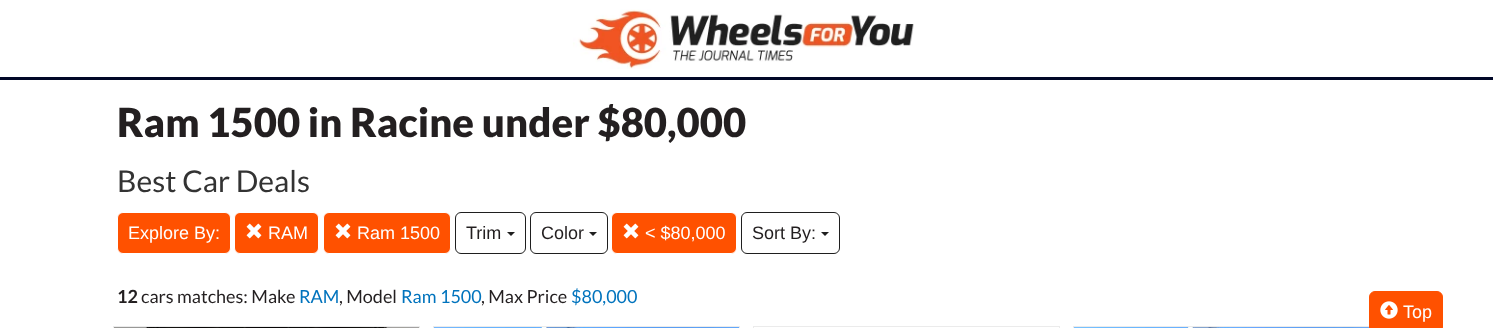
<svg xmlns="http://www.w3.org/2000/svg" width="1493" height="328">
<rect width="100%" height="100%" fill="#fff"/>
<rect y="77" width="1493" height="3" fill="#010727"/>
<image x="573" y="9" width="341" height="60" href="media/1.png"/>
<text x="117" y="137" style="font-family:Lato;font-size:40px;font-weight:900;fill:#231f20">Ram 1500 in Racine under $80,000</text>
<text x="117" y="192" style="font-family:Lato;font-size:30px;fill:#333">Best Car Deals</text>
<rect x="117.5" y="212.5" width="113" height="41" rx="5.5" fill="#ff5100" stroke="#fff"/>
<text x="128" y="239" style="font-family:Liberation Sans;font-size:18px;fill:#fff">Explore By:</text>
<rect x="234.5" y="212.5" width="84" height="41" rx="5.5" fill="#ff5100" stroke="#fff"/>
<image x="246" y="223" width="16" height="16" href="media/2.png"/>
<text x="268" y="239" style="font-family:Liberation Sans;font-size:18px;fill:#fff">RAM</text>
<rect x="323.5" y="212.5" width="127" height="41" rx="5.5" fill="#ff5100" stroke="#fff"/>
<image x="335" y="223" width="16" height="16" href="media/2.png"/>
<text x="357" y="239" style="font-family:Liberation Sans;font-size:18px;fill:#fff">Ram 1500</text>
<rect x="455.5" y="212.5" width="70" height="41" rx="5.5" fill="none" stroke="#1f1f1f"/>
<text x="466" y="239" style="font-family:Liberation Sans;font-size:18px;fill:#231f20">Trim</text>
<path d="M507 232h8l-4 4z" fill="#1f1f1f"/>
<rect x="530.5" y="212.5" width="77" height="41" rx="5.5" fill="none" stroke="#1f1f1f"/>
<text x="541" y="239" style="font-family:Liberation Sans;font-size:18px;fill:#231f20">Color</text>
<path d="M589 232h8l-4 4z" fill="#1f1f1f"/>
<rect x="611.5" y="212.5" width="125" height="41" rx="5.5" fill="#ff5100" stroke="#fff"/>
<image x="623" y="223" width="16" height="16" href="media/2.png"/>
<text x="645" y="239" style="font-family:Liberation Sans;font-size:18px;fill:#fff">&lt; $80,000</text>
<rect x="741.5" y="212.5" width="98" height="41" rx="5.5" fill="none" stroke="#1f1f1f"/>
<text x="752" y="239" style="font-family:Liberation Sans;font-size:18px;fill:#231f20">Sort By:</text>
<path d="M821 232h8l-4 4z" fill="#1f1f1f"/>
<text x="117" y="303" style="font-family:Lato;font-size:18px;font-weight:bold;fill:#231f20">12</text>
<text x="141" y="303" style="font-family:Lato;font-size:18px;fill:#231f20">cars matches: Make</text>
<text x="299" y="303" style="font-family:Lato;font-size:18px;fill:#0073bd">RAM</text>
<text x="339" y="303" style="font-family:Lato;font-size:18px;fill:#231f20">, Model</text>
<text x="401" y="303" style="font-family:Lato;font-size:18px;fill:#0073bd">Ram 1500</text>
<text x="481" y="303" style="font-family:Lato;font-size:18px;fill:#231f20">, Max Price</text>
<text x="571" y="303" style="font-family:Lato;font-size:18px;fill:#0073bd">$80,000</text>
<rect x="113.5" y="326.5" width="306" height="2" fill="none" stroke="#ebebeb"/>
<image x="114" y="327" width="305" height="1" href="media/3.png"/>
<rect x="433.5" y="326.5" width="306" height="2" fill="none" stroke="#ebebeb"/>
<image x="434" y="327" width="305" height="1" href="media/4.png"/>
<rect x="753.5" y="326.5" width="306" height="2" fill="none" stroke="#ebebeb"/>
<rect x="1073.5" y="326.5" width="306" height="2" fill="none" stroke="#ebebeb"/>
<image x="1074" y="327" width="296" height="1" href="media/5.png"/>
<rect x="1369.5" y="291.5" width="73" height="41" rx="5.5" fill="#ff5100" stroke="#ff5100"/>
<image x="1380" y="301" width="18" height="18" href="media/6.png"/>
<text x="1403" y="318" style="font-family:Liberation Sans;font-size:18px;fill:#fff">Top</text>
</svg>
